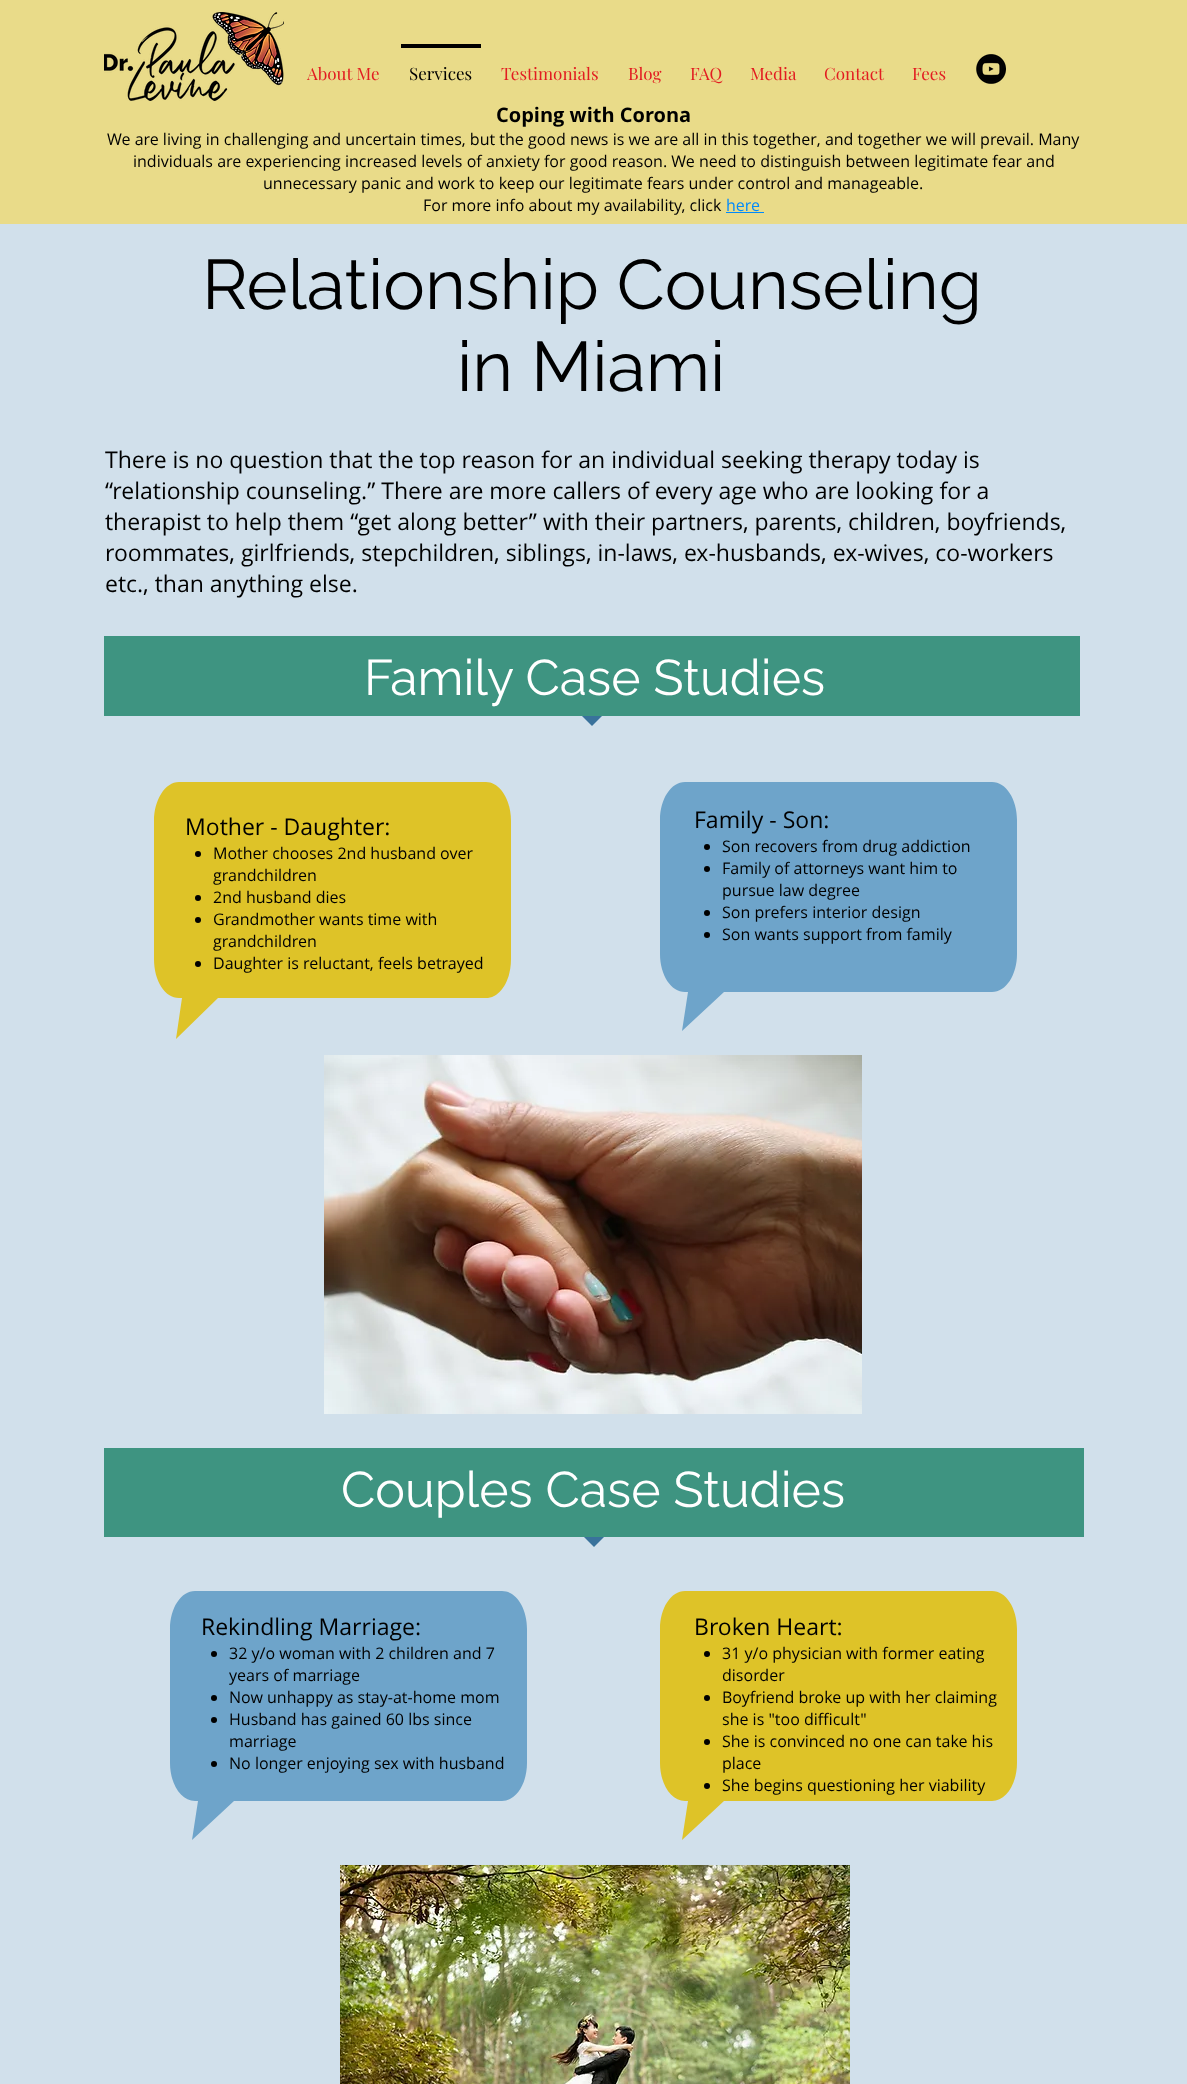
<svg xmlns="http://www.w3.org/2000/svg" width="1187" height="2084">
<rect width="100%" height="100%" fill="#d1e0eb"/>
<rect width="1187" height="224" fill="#e9db89"/>
<image x="104" y="12" width="180" height="89" href="media/1.png"/>
<text x="307" y="80" style="font-family:Playfair Display;font-size:17px;fill:#e21c21">About Me</text>
<rect x="401" y="44" width="80" height="4" fill="#000"/>
<text x="409" y="80" style="font-family:Playfair Display;font-size:17px;fill:#000">Services</text>
<text x="501" y="80" style="font-family:Playfair Display;font-size:17px;fill:#e21c21">Testimonials</text>
<text x="628" y="80" style="font-family:Playfair Display;font-size:17px;fill:#e21c21">Blog</text>
<text x="690" y="80" style="font-family:Playfair Display;font-size:17px;fill:#e21c21">FAQ</text>
<text x="750" y="80" style="font-family:Playfair Display;font-size:17px;fill:#e21c21">Media</text>
<text x="824" y="80" style="font-family:Playfair Display;font-size:17px;fill:#e21c21">Contact</text>
<text x="912" y="80" style="font-family:Playfair Display;font-size:17px;fill:#e21c21">Fees</text>
<image x="976" y="54" width="30" height="30" href="media/2.png"/>
<text x="496" y="122" style="font-family:Open Sans;font-size:20px;font-weight:bold;fill:#000">Coping with Corona</text>
<text x="107" y="145" style="font-family:Open Sans;font-size:16px;fill:#000">We are living in challenging and uncertain times, but the good news is we are all in this together, and together we will prevail. Many</text>
<text x="133" y="167" style="font-family:Open Sans;font-size:16px;fill:#000">individuals are experiencing increased levels of anxiety for good reason. We need to distinguish between legitimate fear and</text>
<text x="263" y="189" style="font-family:Open Sans;font-size:16px;fill:#000">unnecessary panic and work to keep our legitimate fears under control and manageable.</text>
<text x="423" y="211" style="font-family:Open Sans;font-size:16px;fill:#000">For more info about my availability, click</text>
<text x="726" y="211" style="font-family:Open Sans;font-size:16px;fill:#008afc">here</text>
<rect x="726" y="212" width="38" height="1" fill="#008afc"/>
<text x="202" y="309" style="font-family:Raleway;font-size:70px;fill:#000">Relationship Counseling</text>
<text x="457" y="391" style="font-family:Raleway;font-size:70px;fill:#000">in Miami</text>
<text x="105" y="468" style="font-family:Open Sans;font-size:23px;fill:#000">There is no question that the top reason for an individual seeking therapy today is</text>
<text x="105" y="499" style="font-family:Open Sans;font-size:23px;fill:#000">“relationship counseling.” There are more callers of every age who are looking for a</text>
<text x="105" y="530" style="font-family:Open Sans;font-size:23px;fill:#000">therapist to help them “get along better” with their partners, parents, children, boyfriends,</text>
<text x="105" y="561" style="font-family:Open Sans;font-size:23px;fill:#000">roommates, girlfriends, stepchildren, siblings, in-laws, ex-husbands, ex-wives, co-workers</text>
<text x="105" y="592" style="font-family:Open Sans;font-size:23px;fill:#000">etc., than anything else.</text>
<rect x="104" y="636" width="976" height="80" fill="#3e9481"/>
<text x="364" y="695" style="font-family:Raleway;font-size:50px;fill:#fff">Family Case Studies</text>
<path d="M582 716h20l-10 10z" fill="#39729b"/>
<path d="M179 782h307c14 0 25 18 25 39v138c0 22-11 39-25 39h-268l-42 41l6-41h-3c-14 0-25-17-25-39v-138c0-21 11-39 25-39z" fill="#dec328"/>
<path d="M685 782h307c14 0 25 17 25 38v134c0 21-11 38-25 38h-268l-42 39l6-39h-3c-14 0-25-17-25-38v-134c0-21 11-38 25-38z" fill="#6ea4ca"/>
<text x="185" y="835" style="font-family:Open Sans;font-size:23px;fill:#000">Mother - Daughter:</text>
<circle cx="198" cy="854" r="3" fill="#000"/>
<text x="213" y="859" style="font-family:Open Sans;font-size:16px;fill:#000">Mother chooses 2nd husband over</text>
<text x="213" y="881" style="font-family:Open Sans;font-size:16px;fill:#000">grandchildren</text>
<circle cx="198" cy="898" r="3" fill="#000"/>
<text x="213" y="903" style="font-family:Open Sans;font-size:16px;fill:#000">2nd husband dies</text>
<circle cx="198" cy="920" r="3" fill="#000"/>
<text x="213" y="925" style="font-family:Open Sans;font-size:16px;fill:#000">Grandmother wants time with</text>
<text x="213" y="947" style="font-family:Open Sans;font-size:16px;fill:#000">grandchildren</text>
<circle cx="198" cy="964" r="3" fill="#000"/>
<text x="213" y="969" style="font-family:Open Sans;font-size:16px;fill:#000">Daughter is reluctant, feels betrayed</text>
<text x="694" y="828" style="font-family:Open Sans;font-size:23px;fill:#000">Family - Son:</text>
<circle cx="707" cy="847" r="3" fill="#000"/>
<text x="722" y="852" style="font-family:Open Sans;font-size:16px;fill:#000">Son recovers from drug addiction</text>
<circle cx="707" cy="869" r="3" fill="#000"/>
<text x="722" y="874" style="font-family:Open Sans;font-size:16px;fill:#000">Family of attorneys want him to</text>
<text x="722" y="896" style="font-family:Open Sans;font-size:16px;fill:#000">pursue law degree</text>
<circle cx="707" cy="913" r="3" fill="#000"/>
<text x="722" y="918" style="font-family:Open Sans;font-size:16px;fill:#000">Son prefers interior design</text>
<circle cx="707" cy="935" r="3" fill="#000"/>
<text x="722" y="940" style="font-family:Open Sans;font-size:16px;fill:#000">Son wants support from family</text>
<image x="324" y="1055" width="538" height="359" href="media/3.png"/>
<rect x="104" y="1448" width="980" height="89" fill="#3e9481"/>
<text x="341" y="1507" style="font-family:Raleway;font-size:50px;fill:#fff">Couples Case Studies</text>
<path d="M584 1537h20l-10 10z" fill="#39729b"/>
<path d="M195 1591h307c14 0 25 17 25 38v134c0 21-11 38-25 38h-268l-42 39l6-39h-3c-14 0-25-17-25-38v-134c0-21 11-38 25-38z" fill="#6ea4ca"/>
<path d="M685 1591h307c14 0 25 17 25 38v134c0 21-11 38-25 38h-268l-42 39l6-39h-3c-14 0-25-17-25-38v-134c0-21 11-38 25-38z" fill="#dec328"/>
<text x="201" y="1635" style="font-family:Open Sans;font-size:23px;fill:#000">Rekindling Marriage:</text>
<circle cx="214" cy="1654" r="3" fill="#000"/>
<text x="229" y="1659" style="font-family:Open Sans;font-size:16px;fill:#000">32 y/o woman with 2 children and 7</text>
<text x="229" y="1681" style="font-family:Open Sans;font-size:16px;fill:#000">years of marriage</text>
<circle cx="214" cy="1698" r="3" fill="#000"/>
<text x="229" y="1703" style="font-family:Open Sans;font-size:16px;fill:#000">Now unhappy as stay-at-home mom</text>
<circle cx="214" cy="1720" r="3" fill="#000"/>
<text x="229" y="1725" style="font-family:Open Sans;font-size:16px;fill:#000">Husband has gained 60 lbs since</text>
<text x="229" y="1747" style="font-family:Open Sans;font-size:16px;fill:#000">marriage</text>
<circle cx="214" cy="1764" r="3" fill="#000"/>
<text x="229" y="1769" style="font-family:Open Sans;font-size:16px;fill:#000">No longer enjoying sex with husband</text>
<text x="694" y="1635" style="font-family:Open Sans;font-size:23px;fill:#000">Broken Heart:</text>
<circle cx="707" cy="1654" r="3" fill="#000"/>
<text x="722" y="1659" style="font-family:Open Sans;font-size:16px;fill:#000">31 y/o physician with former eating</text>
<text x="722" y="1681" style="font-family:Open Sans;font-size:16px;fill:#000">disorder</text>
<circle cx="707" cy="1698" r="3" fill="#000"/>
<text x="722" y="1703" style="font-family:Open Sans;font-size:16px;fill:#000">Boyfriend broke up with her claiming</text>
<text x="722" y="1725" style="font-family:Open Sans;font-size:16px;fill:#000">she is "too difficult"</text>
<circle cx="707" cy="1742" r="3" fill="#000"/>
<text x="722" y="1747" style="font-family:Open Sans;font-size:16px;fill:#000">She is convinced no one can take his</text>
<text x="722" y="1769" style="font-family:Open Sans;font-size:16px;fill:#000">place</text>
<circle cx="707" cy="1786" r="3" fill="#000"/>
<text x="722" y="1791" style="font-family:Open Sans;font-size:16px;fill:#000">She begins questioning her viability</text>
<image x="340" y="1865" width="510" height="219" href="media/4.png"/>
</svg>
